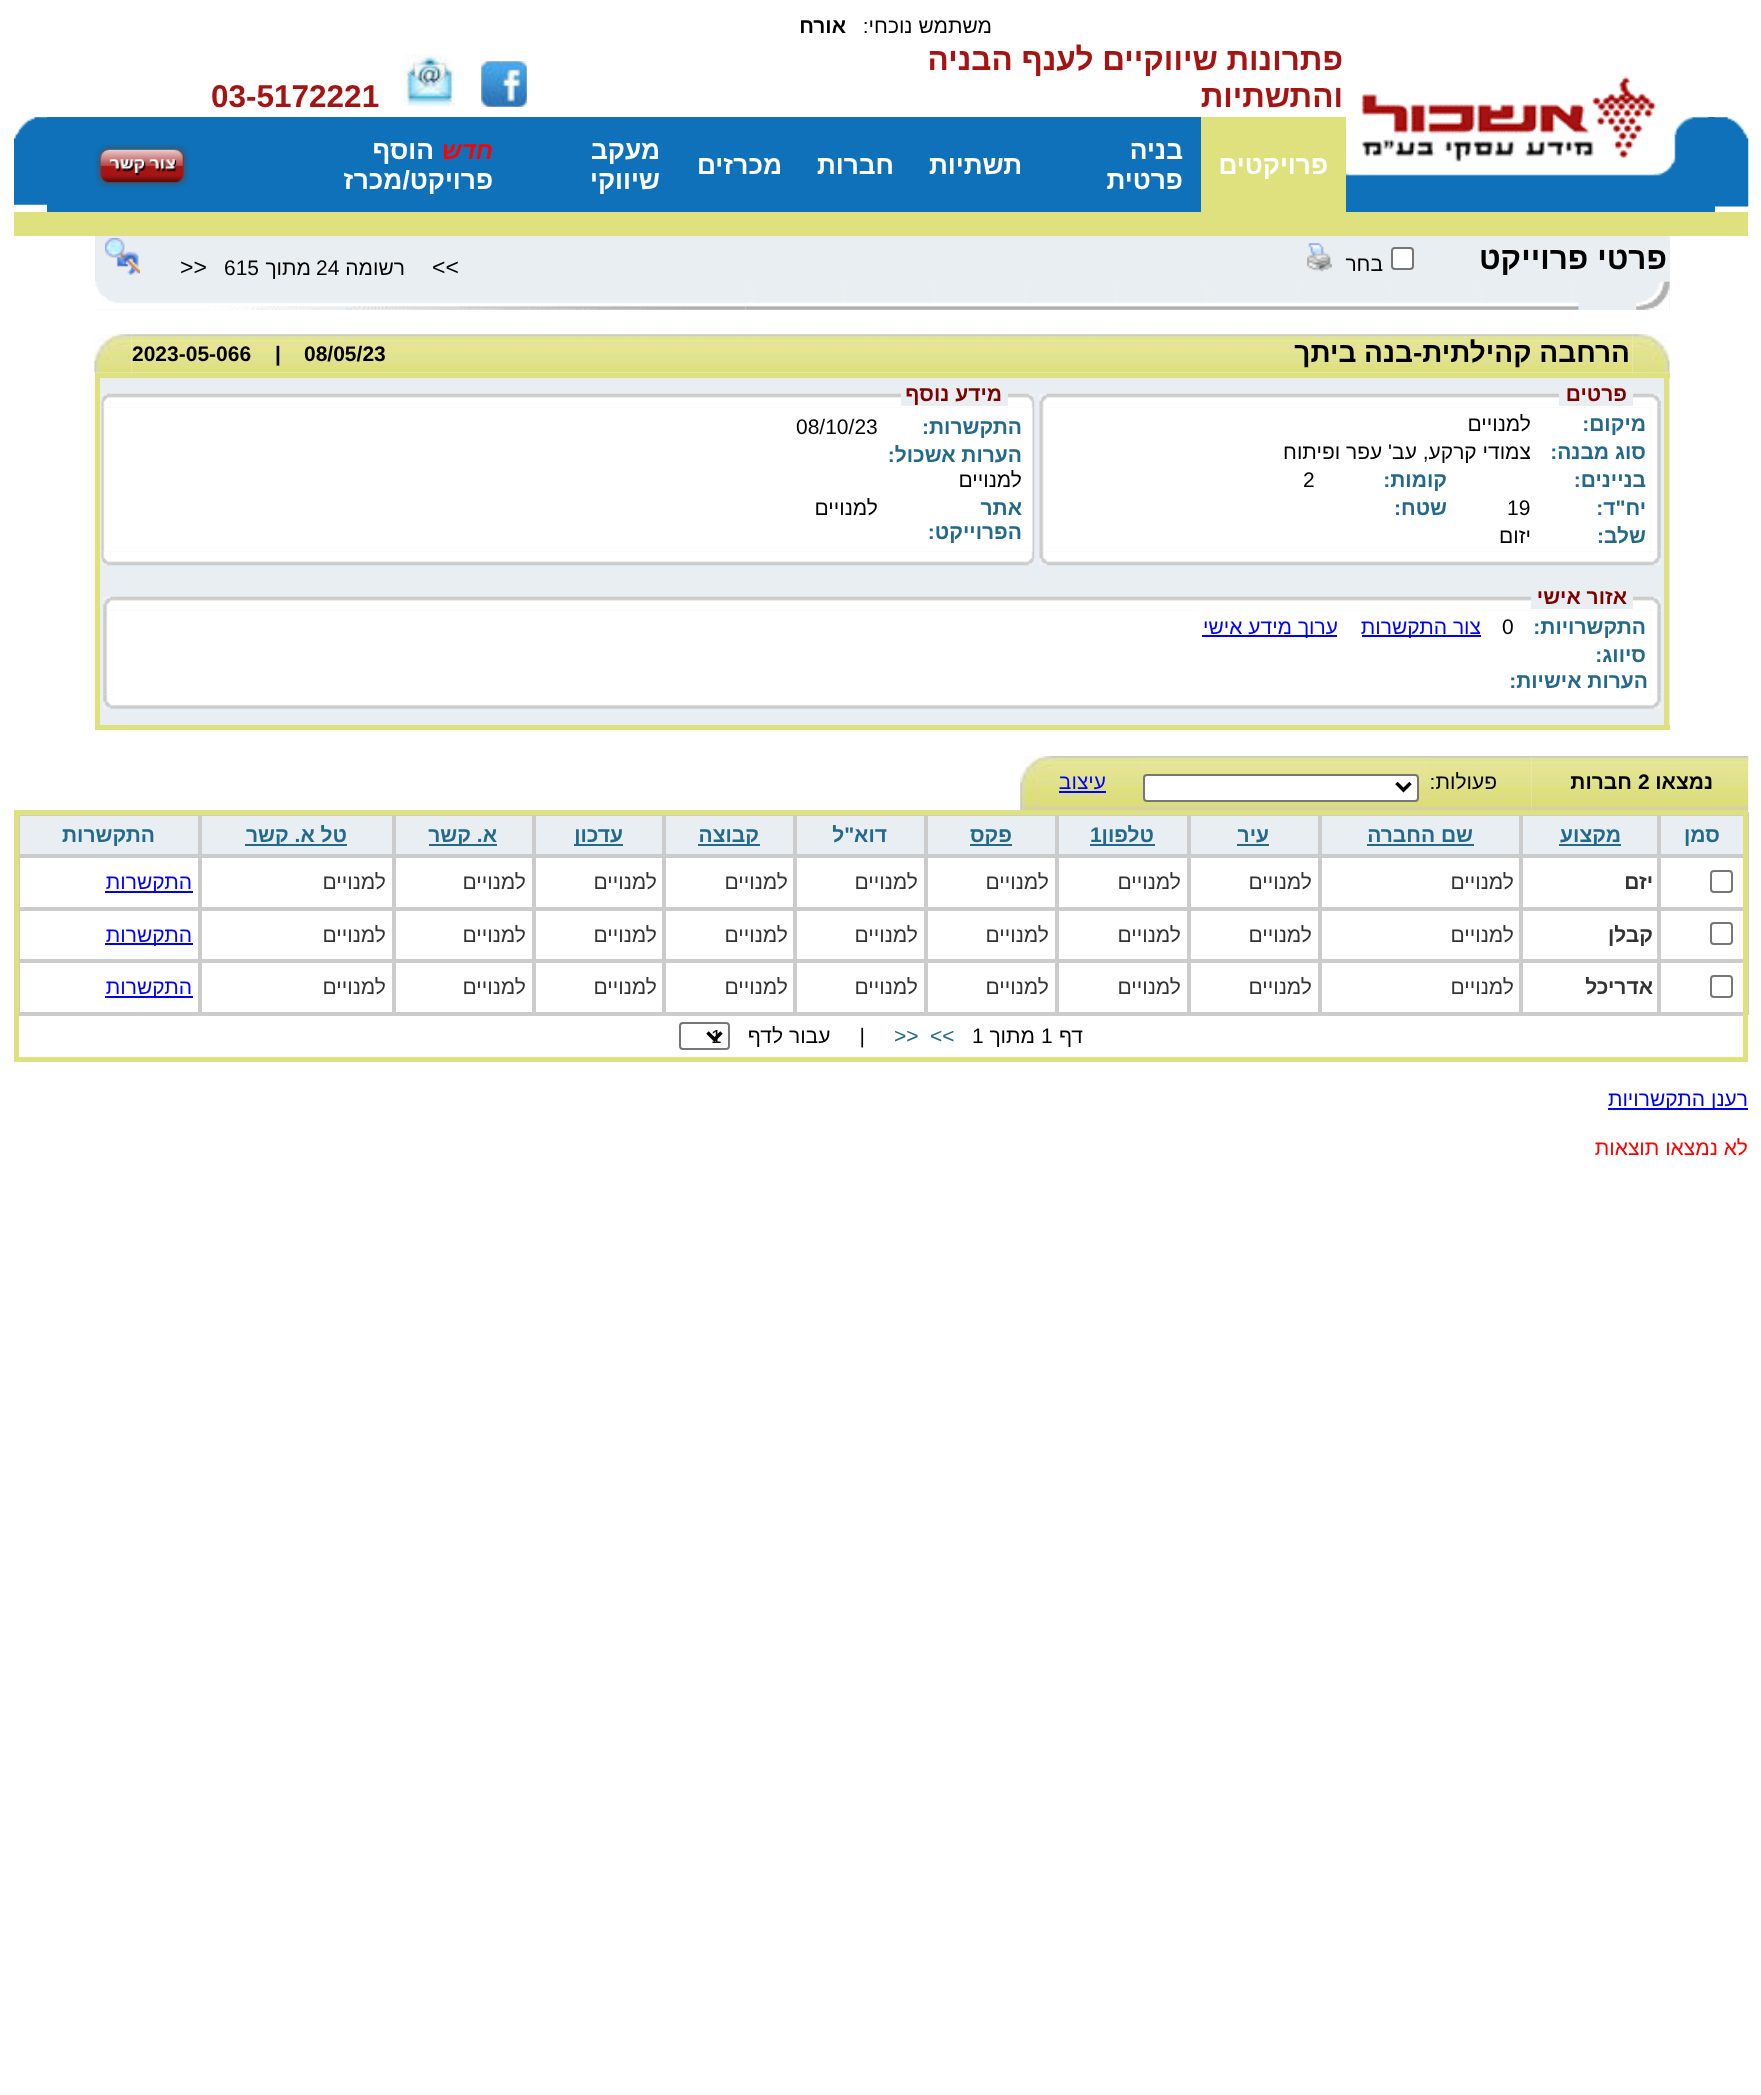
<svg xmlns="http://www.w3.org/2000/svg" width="1761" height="2095">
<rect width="100%" height="100%" fill="#fff"/>
<text x="992" y="33" style="font-family:Liberation Sans;font-size:21px;direction:rtl;fill:#000">משתמש נוכחי:</text>
<text x="846" y="33" style="font-family:Liberation Sans;font-size:21px;font-weight:bold;direction:rtl;fill:#000">אורח</text>
<rect x="1346" y="199" width="362" height="13" fill="#0f71ba"/>
<image x="1345" y="39" width="363" height="161" href="media/1.png"/>
<text x="1343" y="70" style="font-family:Liberation Sans;font-size:31.5px;font-weight:bold;direction:rtl;fill:#a61313">פתרונות שיווקיים לענף הבניה</text>
<text x="1343" y="107" style="font-family:Liberation Sans;font-size:31.5px;font-weight:bold;direction:rtl;fill:#a61313">והתשתיות</text>
<image x="481" y="61" width="46" height="46" href="media/2.png"/>
<image x="404" y="54" width="51" height="53" href="media/3.png"/>
<text x="211" y="107" style="font-family:Liberation Sans;font-size:31.5px;font-weight:bold;fill:#a61313">03-5172221</text>
<image x="1715" y="117" width="34" height="90" href="media/4.png"/>
<rect x="1708" y="117" width="7" height="95" fill="#0f71ba"/>
<rect x="1201" y="117" width="145" height="95" fill="#dfe17e"/>
<text x="1328" y="174" style="font-family:Liberation Sans;font-size:26.25px;font-weight:bold;direction:rtl;fill:#fff">פרויקטים</text>
<rect x="47" y="117" width="1154" height="95" fill="#0f71ba"/>
<text x="1183" y="159" style="font-family:Liberation Sans;font-size:26.25px;font-weight:bold;direction:rtl;fill:#fff">בניה</text>
<text x="1183" y="189" style="font-family:Liberation Sans;font-size:26.25px;font-weight:bold;direction:rtl;fill:#fff">פרטית</text>
<text x="1022" y="174" style="font-family:Liberation Sans;font-size:26.25px;font-weight:bold;direction:rtl;fill:#fff">תשתיות</text>
<text x="894" y="174" style="font-family:Liberation Sans;font-size:26.25px;font-weight:bold;direction:rtl;fill:#fff">חברות</text>
<text x="782" y="174" style="font-family:Liberation Sans;font-size:26.25px;font-weight:bold;direction:rtl;fill:#fff">מכרזים</text>
<text x="660" y="159" style="font-family:Liberation Sans;font-size:26.25px;font-weight:bold;direction:rtl;fill:#fff">מעקב</text>
<text x="660" y="189" style="font-family:Liberation Sans;font-size:26.25px;font-weight:bold;direction:rtl;fill:#fff">שיווקי</text>
<text x="493" y="159" style="font-family:Liberation Sans;font-size:24.5px;font-weight:bold;font-style:italic;direction:rtl;fill:#f00">חדש</text>
<text x="434" y="159" style="font-family:Liberation Sans;font-size:26.25px;font-weight:bold;direction:rtl;fill:#fff">הוסף</text>
<text x="493" y="189" style="font-family:Liberation Sans;font-size:26.25px;font-weight:bold;direction:rtl;fill:#fff">פרויקט/מכרז</text>
<image x="95" y="144" width="94" height="44" href="media/5.png"/>
<image x="14" y="117" width="33" height="88" href="media/6.png"/>
<rect x="14" y="212" width="1734" height="24" fill="#dfe17e"/>
<rect x="95" y="236" width="1575" height="74" fill="#e8eef2"/>
<text x="1667" y="269" style="font-family:Liberation Sans;font-size:31.5px;font-weight:bold;direction:rtl;fill:#000">פרטי פרוייקט</text>
<rect x="1392" y="248" width="21" height="21" rx="3" fill="#fff" stroke="#767676" stroke-width="2"/>
<text x="1383" y="271" style="font-family:Liberation Sans;font-size:21px;direction:rtl;fill:#000">בחר</text>
<image x="1307" y="243" width="25" height="29" href="media/7.png"/>
<text x="432" y="275" style="font-family:Liberation Sans;font-size:23px;fill:#000">&lt;&lt;</text>
<text x="405" y="275" style="font-family:Liberation Sans;font-size:21px;direction:rtl;fill:#000">רשומה</text>
<text x="316" y="275" style="font-family:Liberation Sans;font-size:21px;fill:#000">24</text>
<text x="311" y="275" style="font-family:Liberation Sans;font-size:21px;direction:rtl;fill:#000">מתוך</text>
<text x="224" y="275" style="font-family:Liberation Sans;font-size:21px;fill:#000">615</text>
<text x="180" y="275" style="font-family:Liberation Sans;font-size:23px;fill:#000">&gt;&gt;</text>
<image x="105" y="238" width="35" height="37" href="media/8.png"/>
<image x="1636" y="281" width="34" height="29" href="media/9.png"/>
<image x="745" y="284" width="834" height="26" href="media/10.png"/>
<image x="94" y="281" width="652" height="29" href="media/11.png"/>
<image x="1632" y="334" width="38" height="39" href="media/12.png"/>
<image x="777" y="334" width="856" height="39" href="media/13.png"/>
<text x="1630" y="362" style="font-family:Liberation Sans;font-size:28px;font-weight:bold;direction:rtl;fill:#000">הרחבה קהילתית-בנה ביתך</text>
<image x="131" y="334" width="646" height="39" href="media/14.png"/>
<text x="304" y="361" style="font-family:Liberation Sans;font-size:21px;font-weight:bold;fill:#000">08/05/23</text>
<text x="275" y="361" style="font-family:Liberation Sans;font-size:21px;font-weight:bold;fill:#000">|</text>
<text x="132" y="361" style="font-family:Liberation Sans;font-size:21px;font-weight:bold;fill:#000">2023-05-066</text>
<image x="94" y="334" width="38" height="39" href="media/15.png"/>
<rect x="100" y="378" width="1570" height="347" fill="#e8eef2"/>
<rect x="95" y="373" width="1575" height="5" fill="#dfe17e"/>
<rect x="1664" y="373" width="5" height="357" fill="#dfe17e"/>
<rect x="95" y="725" width="1575" height="5" fill="#dfe17e"/>
<rect x="95" y="373" width="5" height="357" fill="#dfe17e"/>
<image x="1650" y="393" width="11" height="15" href="media/16.png"/>
<image x="1050" y="393" width="600" height="15" href="media/17.png"/>
<rect x="1559" y="393" width="74" height="13" fill="#e8eef2"/>
<text x="1627" y="401" style="font-family:Liberation Sans;font-size:21px;font-weight:bold;direction:rtl;fill:#800000">פרטים</text>
<image x="1039" y="393" width="11" height="15" href="media/18.png"/>
<image x="1650" y="408" width="11" height="144" href="media/19.png"/>
<rect x="1050" y="408" width="600" height="143" fill="#fff"/>
<text x="1646" y="431" style="font-family:Liberation Sans;font-size:21px;font-weight:bold;direction:rtl;fill:#23698b">מיקום:</text>
<text x="1531" y="431" style="font-family:Liberation Sans;font-size:21px;direction:rtl;fill:#000">למנויים</text>
<text x="1646" y="459" style="font-family:Liberation Sans;font-size:21px;font-weight:bold;direction:rtl;fill:#23698b">סוג מבנה:</text>
<text x="1531" y="459" style="font-family:Liberation Sans;font-size:21px;direction:rtl;fill:#000">צמודי קרקע, עב' עפר ופיתוח</text>
<text x="1646" y="487" style="font-family:Liberation Sans;font-size:21px;font-weight:bold;direction:rtl;fill:#23698b">בניינים:</text>
<text x="1447" y="487" style="font-family:Liberation Sans;font-size:21px;font-weight:bold;direction:rtl;fill:#23698b">קומות:</text>
<text x="1303" y="487" style="font-family:Liberation Sans;font-size:21px;fill:#000">2</text>
<text x="1646" y="515" style="font-family:Liberation Sans;font-size:21px;font-weight:bold;direction:rtl;fill:#23698b">יח"ד:</text>
<text x="1507" y="515" style="font-family:Liberation Sans;font-size:21px;fill:#000">19</text>
<text x="1447" y="515" style="font-family:Liberation Sans;font-size:21px;font-weight:bold;direction:rtl;fill:#23698b">שטח:</text>
<text x="1646" y="543" style="font-family:Liberation Sans;font-size:21px;font-weight:bold;direction:rtl;fill:#23698b">שלב:</text>
<text x="1531" y="543" style="font-family:Liberation Sans;font-size:21px;direction:rtl;fill:#000">יזום</text>
<image x="1039" y="408" width="11" height="144" href="media/20.png"/>
<image x="1650" y="551" width="11" height="15" href="media/21.png"/>
<image x="1050" y="551" width="600" height="15" href="media/22.png"/>
<image x="1039" y="551" width="11" height="15" href="media/23.png"/>
<image x="1025" y="393" width="10" height="15" href="media/24.png"/>
<image x="110" y="393" width="916" height="15" href="media/25.png"/>
<rect x="901" y="393" width="107" height="13" fill="#e8eef2"/>
<text x="1002" y="401" style="font-family:Liberation Sans;font-size:21px;font-weight:bold;direction:rtl;fill:#800000">מידע נוסף</text>
<image x="101" y="393" width="9" height="15" href="media/26.png"/>
<image x="1025" y="408" width="10" height="144" href="media/27.png"/>
<rect x="110" y="408" width="916" height="143" fill="#fff"/>
<text x="1022" y="434" style="font-family:Liberation Sans;font-size:21px;font-weight:bold;direction:rtl;fill:#23698b">התקשרות:</text>
<text x="796" y="434" style="font-family:Liberation Sans;font-size:21px;fill:#000">08/10/23</text>
<text x="1022" y="462" style="font-family:Liberation Sans;font-size:21px;font-weight:bold;direction:rtl;fill:#23698b">הערות אשכול:</text>
<text x="1022" y="487" style="font-family:Liberation Sans;font-size:21px;direction:rtl;fill:#000">למנויים</text>
<text x="1022" y="515" style="font-family:Liberation Sans;font-size:21px;font-weight:bold;direction:rtl;fill:#23698b">אתר</text>
<text x="1022" y="539" style="font-family:Liberation Sans;font-size:21px;font-weight:bold;direction:rtl;fill:#23698b">הפרוייקט:</text>
<text x="878" y="515" style="font-family:Liberation Sans;font-size:21px;direction:rtl;fill:#000">למנויים</text>
<image x="101" y="408" width="9" height="144" href="media/28.png"/>
<image x="1025" y="551" width="10" height="15" href="media/29.png"/>
<image x="110" y="551" width="916" height="15" href="media/30.png"/>
<image x="101" y="551" width="9" height="15" href="media/31.png"/>
<image x="1650" y="596" width="11" height="15" href="media/16.png"/>
<image x="113" y="596" width="1537" height="15" href="media/32.png"/>
<rect x="1531" y="596" width="102" height="13" fill="#e8eef2"/>
<text x="1627" y="604" style="font-family:Liberation Sans;font-size:21px;font-weight:bold;direction:rtl;fill:#800000">אזור אישי</text>
<image x="103" y="596" width="11" height="15" href="media/33.png"/>
<image x="1650" y="611" width="11" height="84" href="media/34.png"/>
<rect x="114" y="611" width="1536" height="84" fill="#fff"/>
<text x="1646" y="634" style="font-family:Liberation Sans;font-size:21px;font-weight:bold;direction:rtl;fill:#23698b">התקשרויות:</text>
<text x="1502" y="634" style="font-family:Liberation Sans;font-size:21px;fill:#000">0</text>
<rect x="1362" y="635" width="119" height="2" fill="#00f"/>
<text x="1481" y="634" style="font-family:Liberation Sans;font-size:21px;direction:rtl;fill:#00f">צור התקשרות</text>
<rect x="1202" y="635" width="135" height="2" fill="#00f"/>
<text x="1338" y="634" style="font-family:Liberation Sans;font-size:21px;direction:rtl;fill:#00f">ערוך מידע אישי</text>
<text x="1646" y="662" style="font-family:Liberation Sans;font-size:21px;font-weight:bold;direction:rtl;fill:#23698b">סיווג:</text>
<text x="1648" y="688" style="font-family:Liberation Sans;font-size:21px;font-weight:bold;direction:rtl;fill:#23698b">הערות אישיות:</text>
<image x="103" y="611" width="11" height="84" href="media/35.png"/>
<image x="1650" y="695" width="11" height="14" href="media/36.png"/>
<image x="113" y="695" width="1537" height="14" href="media/37.png"/>
<image x="103" y="695" width="11" height="14" href="media/38.png"/>
<image x="1568" y="756" width="181" height="55" href="media/39.png"/>
<text x="1713" y="789" style="font-family:Liberation Sans;font-size:21px;font-weight:bold;direction:rtl;fill:#000">נמצאו</text>
<text x="1638" y="789" style="font-family:Liberation Sans;font-size:21px;font-weight:bold;fill:#000">2</text>
<text x="1632" y="789" style="font-family:Liberation Sans;font-size:21px;font-weight:bold;direction:rtl;fill:#000">חברות</text>
<image x="1531" y="756" width="37" height="54" href="media/40.png"/>
<image x="1428" y="756" width="104" height="54" href="media/41.png"/>
<text x="1497" y="789" style="font-family:Liberation Sans;font-size:21px;direction:rtl;fill:#000">פעולות:</text>
<image x="1141" y="756" width="287" height="54" href="media/42.png"/>
<rect x="1144" y="775" width="274" height="26" rx="3" fill="#fff" stroke="#767676" stroke-width="2"/>
<path d="M1396.5 783l7 7l7-7" fill="none" stroke="#000" stroke-width="3.5"/>
<image x="1057" y="756" width="84" height="54" href="media/43.png"/>
<text x="1106" y="789" style="font-family:Liberation Sans;font-size:21px;direction:rtl;fill:#00f">עיצוב</text>
<rect x="1059" y="791" width="47" height="2" fill="#00f"/>
<image x="1020" y="756" width="37" height="54" href="media/44.png"/>
<rect x="20" y="816" width="1723" height="38" fill="#e8eef2"/>
<rect x="16" y="815" width="185" height="1" fill="#ccc"/>
<rect x="16" y="854" width="185" height="4" fill="#ccc"/>
<rect x="16" y="907" width="185" height="4" fill="#ccc"/>
<rect x="16" y="959" width="185" height="4" fill="#ccc"/>
<rect x="198" y="959" width="4" height="56" fill="#ccc"/>
<rect x="198" y="959" width="198" height="4" fill="#ccc"/>
<rect x="198" y="907" width="4" height="56" fill="#ccc"/>
<rect x="198" y="907" width="198" height="4" fill="#ccc"/>
<rect x="198" y="854" width="4" height="56" fill="#ccc"/>
<rect x="198" y="854" width="198" height="4" fill="#ccc"/>
<rect x="198" y="812" width="4" height="46" fill="#ccc"/>
<rect x="198" y="815" width="198" height="1" fill="#ccc"/>
<rect x="392" y="959" width="4" height="56" fill="#ccc"/>
<rect x="392" y="959" width="144" height="4" fill="#ccc"/>
<rect x="392" y="907" width="4" height="56" fill="#ccc"/>
<rect x="392" y="907" width="144" height="4" fill="#ccc"/>
<rect x="392" y="854" width="4" height="56" fill="#ccc"/>
<rect x="392" y="854" width="144" height="4" fill="#ccc"/>
<rect x="392" y="812" width="4" height="46" fill="#ccc"/>
<rect x="392" y="815" width="144" height="1" fill="#ccc"/>
<rect x="532" y="959" width="4" height="56" fill="#ccc"/>
<rect x="532" y="959" width="133" height="4" fill="#ccc"/>
<rect x="532" y="907" width="4" height="56" fill="#ccc"/>
<rect x="532" y="907" width="133" height="4" fill="#ccc"/>
<rect x="532" y="854" width="4" height="56" fill="#ccc"/>
<rect x="532" y="854" width="133" height="4" fill="#ccc"/>
<rect x="532" y="812" width="4" height="46" fill="#ccc"/>
<rect x="532" y="815" width="133" height="1" fill="#ccc"/>
<rect x="662" y="959" width="4" height="56" fill="#ccc"/>
<rect x="662" y="959" width="134" height="4" fill="#ccc"/>
<rect x="662" y="907" width="4" height="56" fill="#ccc"/>
<rect x="662" y="907" width="134" height="4" fill="#ccc"/>
<rect x="662" y="854" width="4" height="56" fill="#ccc"/>
<rect x="662" y="854" width="134" height="4" fill="#ccc"/>
<rect x="662" y="812" width="4" height="46" fill="#ccc"/>
<rect x="662" y="815" width="134" height="1" fill="#ccc"/>
<rect x="793" y="959" width="4" height="56" fill="#ccc"/>
<rect x="793" y="959" width="135" height="4" fill="#ccc"/>
<rect x="793" y="907" width="4" height="56" fill="#ccc"/>
<rect x="793" y="907" width="135" height="4" fill="#ccc"/>
<rect x="793" y="854" width="4" height="56" fill="#ccc"/>
<rect x="793" y="854" width="135" height="4" fill="#ccc"/>
<rect x="793" y="812" width="4" height="46" fill="#ccc"/>
<rect x="793" y="815" width="135" height="1" fill="#ccc"/>
<rect x="924" y="959" width="4" height="56" fill="#ccc"/>
<rect x="924" y="959" width="135" height="4" fill="#ccc"/>
<rect x="924" y="907" width="4" height="56" fill="#ccc"/>
<rect x="924" y="907" width="135" height="4" fill="#ccc"/>
<rect x="924" y="854" width="4" height="56" fill="#ccc"/>
<rect x="924" y="854" width="135" height="4" fill="#ccc"/>
<rect x="924" y="812" width="4" height="46" fill="#ccc"/>
<rect x="924" y="815" width="135" height="1" fill="#ccc"/>
<rect x="1055" y="959" width="4" height="56" fill="#ccc"/>
<rect x="1055" y="959" width="135" height="4" fill="#ccc"/>
<rect x="1055" y="907" width="4" height="56" fill="#ccc"/>
<rect x="1055" y="907" width="135" height="4" fill="#ccc"/>
<rect x="1055" y="854" width="4" height="56" fill="#ccc"/>
<rect x="1055" y="854" width="135" height="4" fill="#ccc"/>
<rect x="1055" y="812" width="4" height="46" fill="#ccc"/>
<rect x="1055" y="815" width="135" height="1" fill="#ccc"/>
<rect x="1187" y="959" width="4" height="56" fill="#ccc"/>
<rect x="1187" y="959" width="134" height="4" fill="#ccc"/>
<rect x="1187" y="907" width="4" height="56" fill="#ccc"/>
<rect x="1187" y="907" width="134" height="4" fill="#ccc"/>
<rect x="1187" y="854" width="4" height="56" fill="#ccc"/>
<rect x="1187" y="854" width="134" height="4" fill="#ccc"/>
<rect x="1187" y="812" width="4" height="46" fill="#ccc"/>
<rect x="1187" y="815" width="134" height="1" fill="#ccc"/>
<rect x="1318" y="959" width="4" height="56" fill="#ccc"/>
<rect x="1318" y="959" width="205" height="4" fill="#ccc"/>
<rect x="1318" y="907" width="4" height="56" fill="#ccc"/>
<rect x="1318" y="907" width="205" height="4" fill="#ccc"/>
<rect x="1318" y="854" width="4" height="56" fill="#ccc"/>
<rect x="1318" y="854" width="205" height="4" fill="#ccc"/>
<rect x="1318" y="812" width="4" height="46" fill="#ccc"/>
<rect x="1318" y="815" width="205" height="1" fill="#ccc"/>
<rect x="1519" y="959" width="4" height="56" fill="#ccc"/>
<rect x="1519" y="959" width="142" height="4" fill="#ccc"/>
<rect x="1519" y="907" width="4" height="56" fill="#ccc"/>
<rect x="1519" y="907" width="142" height="4" fill="#ccc"/>
<rect x="1519" y="854" width="4" height="56" fill="#ccc"/>
<rect x="1519" y="854" width="142" height="4" fill="#ccc"/>
<rect x="1519" y="812" width="4" height="46" fill="#ccc"/>
<rect x="1519" y="815" width="142" height="1" fill="#ccc"/>
<rect x="1657" y="959" width="4" height="56" fill="#ccc"/>
<rect x="1657" y="959" width="91" height="4" fill="#ccc"/>
<rect x="1657" y="907" width="4" height="56" fill="#ccc"/>
<rect x="1657" y="907" width="91" height="4" fill="#ccc"/>
<rect x="1657" y="854" width="4" height="56" fill="#ccc"/>
<rect x="1657" y="854" width="91" height="4" fill="#ccc"/>
<rect x="1657" y="812" width="4" height="46" fill="#ccc"/>
<rect x="16" y="1012" width="185" height="4" fill="#ccc"/>
<rect x="19" y="959" width="1" height="56" fill="#ccc"/>
<rect x="19" y="907" width="1" height="56" fill="#ccc"/>
<rect x="19" y="854" width="1" height="56" fill="#ccc"/>
<rect x="19" y="812" width="1" height="46" fill="#ccc"/>
<rect x="14" y="810" width="1734" height="5" fill="#dfe17e"/>
<rect x="1657" y="815" width="91" height="1" fill="#ccc"/>
<rect x="198" y="1012" width="198" height="4" fill="#ccc"/>
<rect x="392" y="1012" width="144" height="4" fill="#ccc"/>
<rect x="532" y="1012" width="133" height="4" fill="#ccc"/>
<rect x="662" y="1012" width="134" height="4" fill="#ccc"/>
<rect x="793" y="1012" width="135" height="4" fill="#ccc"/>
<rect x="924" y="1012" width="135" height="4" fill="#ccc"/>
<rect x="1055" y="1012" width="135" height="4" fill="#ccc"/>
<rect x="1187" y="1012" width="134" height="4" fill="#ccc"/>
<rect x="1318" y="1012" width="205" height="4" fill="#ccc"/>
<rect x="1519" y="1012" width="229" height="4" fill="#ccc"/>
<rect x="1743" y="810" width="5" height="252" fill="#dfe17e"/>
<rect x="14" y="810" width="5" height="205" fill="#dfe17e"/>
<text x="1720" y="842" style="font-family:Liberation Sans;font-size:21px;font-weight:bold;direction:rtl;fill:#23698b">סמן</text>
<rect x="1559" y="844" width="62" height="2" fill="#23698b"/>
<text x="1621" y="842" style="font-family:Liberation Sans;font-size:21px;font-weight:bold;direction:rtl;fill:#23698b">מקצוע</text>
<text x="1473" y="842" style="font-family:Liberation Sans;font-size:21px;font-weight:bold;direction:rtl;fill:#23698b">שם החברה</text>
<rect x="1367" y="844" width="107" height="2" fill="#23698b"/>
<text x="1269" y="842" style="font-family:Liberation Sans;font-size:21px;font-weight:bold;direction:rtl;fill:#23698b">עיר</text>
<rect x="1237" y="844" width="32" height="2" fill="#23698b"/>
<rect x="1090" y="844" width="65" height="2" fill="#23698b"/>
<text x="1154" y="842" style="font-family:Liberation Sans;font-size:21px;font-weight:bold;direction:rtl;fill:#23698b">טלפון</text>
<text x="1090" y="842" style="font-family:Liberation Sans;font-size:21px;font-weight:bold;fill:#23698b">1</text>
<rect x="970" y="844" width="42" height="2" fill="#23698b"/>
<text x="1012" y="842" style="font-family:Liberation Sans;font-size:21px;font-weight:bold;direction:rtl;fill:#23698b">פקס</text>
<text x="887" y="842" style="font-family:Liberation Sans;font-size:21px;font-weight:bold;direction:rtl;fill:#23698b">דוא"ל</text>
<rect x="698" y="844" width="62" height="2" fill="#23698b"/>
<text x="759" y="842" style="font-family:Liberation Sans;font-size:21px;font-weight:bold;direction:rtl;fill:#23698b">קבוצה</text>
<rect x="574" y="844" width="49" height="2" fill="#23698b"/>
<text x="623" y="842" style="font-family:Liberation Sans;font-size:21px;font-weight:bold;direction:rtl;fill:#23698b">עדכון</text>
<rect x="429" y="844" width="68" height="2" fill="#23698b"/>
<text x="497" y="842" style="font-family:Liberation Sans;font-size:21px;font-weight:bold;direction:rtl;fill:#23698b">א. קשר</text>
<rect x="245" y="844" width="102" height="2" fill="#23698b"/>
<text x="347" y="842" style="font-family:Liberation Sans;font-size:21px;font-weight:bold;direction:rtl;fill:#23698b">טל א. קשר</text>
<text x="155" y="842" style="font-family:Liberation Sans;font-size:21px;font-weight:bold;direction:rtl;fill:#23698b">התקשרות</text>
<rect x="1711" y="871" width="21" height="21" rx="3" fill="none" stroke="#767676" stroke-width="2"/>
<text x="1653" y="889" style="font-family:Liberation Sans;font-size:21px;font-weight:bold;direction:rtl;fill:#333">יזם</text>
<text x="1514" y="889" style="font-family:Liberation Sans;font-size:21px;direction:rtl;fill:#333">למנויים</text>
<text x="1312" y="889" style="font-family:Liberation Sans;font-size:21px;direction:rtl;fill:#333">למנויים</text>
<text x="1181" y="889" style="font-family:Liberation Sans;font-size:21px;direction:rtl;fill:#333">למנויים</text>
<text x="1049" y="889" style="font-family:Liberation Sans;font-size:21px;direction:rtl;fill:#333">למנויים</text>
<text x="918" y="889" style="font-family:Liberation Sans;font-size:21px;direction:rtl;fill:#333">למנויים</text>
<text x="788" y="889" style="font-family:Liberation Sans;font-size:21px;direction:rtl;fill:#333">למנויים</text>
<text x="657" y="889" style="font-family:Liberation Sans;font-size:21px;direction:rtl;fill:#333">למנויים</text>
<text x="526" y="889" style="font-family:Liberation Sans;font-size:21px;direction:rtl;fill:#333">למנויים</text>
<text x="386" y="889" style="font-family:Liberation Sans;font-size:21px;direction:rtl;fill:#333">למנויים</text>
<rect x="105" y="891" width="88" height="2" fill="#00f"/>
<text x="192" y="889" style="font-family:Liberation Sans;font-size:21px;direction:rtl;fill:#00f">התקשרות</text>
<rect x="1711" y="923" width="21" height="21" rx="3" fill="none" stroke="#767676" stroke-width="2"/>
<text x="1653" y="942" style="font-family:Liberation Sans;font-size:21px;font-weight:bold;direction:rtl;fill:#333">קבלן</text>
<text x="1514" y="942" style="font-family:Liberation Sans;font-size:21px;direction:rtl;fill:#333">למנויים</text>
<text x="1312" y="942" style="font-family:Liberation Sans;font-size:21px;direction:rtl;fill:#333">למנויים</text>
<text x="1181" y="942" style="font-family:Liberation Sans;font-size:21px;direction:rtl;fill:#333">למנויים</text>
<text x="1049" y="942" style="font-family:Liberation Sans;font-size:21px;direction:rtl;fill:#333">למנויים</text>
<text x="918" y="942" style="font-family:Liberation Sans;font-size:21px;direction:rtl;fill:#333">למנויים</text>
<text x="788" y="942" style="font-family:Liberation Sans;font-size:21px;direction:rtl;fill:#333">למנויים</text>
<text x="657" y="942" style="font-family:Liberation Sans;font-size:21px;direction:rtl;fill:#333">למנויים</text>
<text x="526" y="942" style="font-family:Liberation Sans;font-size:21px;direction:rtl;fill:#333">למנויים</text>
<text x="386" y="942" style="font-family:Liberation Sans;font-size:21px;direction:rtl;fill:#333">למנויים</text>
<rect x="105" y="943" width="88" height="2" fill="#00f"/>
<text x="192" y="942" style="font-family:Liberation Sans;font-size:21px;direction:rtl;fill:#00f">התקשרות</text>
<rect x="1748" y="812" width="1" height="203" fill="#ccc"/>
<rect x="1711" y="976" width="21" height="21" rx="3" fill="none" stroke="#767676" stroke-width="2"/>
<text x="1653" y="994" style="font-family:Liberation Sans;font-size:21px;font-weight:bold;direction:rtl;fill:#333">אדריכל</text>
<text x="1514" y="994" style="font-family:Liberation Sans;font-size:21px;direction:rtl;fill:#333">למנויים</text>
<text x="1312" y="994" style="font-family:Liberation Sans;font-size:21px;direction:rtl;fill:#333">למנויים</text>
<text x="1181" y="994" style="font-family:Liberation Sans;font-size:21px;direction:rtl;fill:#333">למנויים</text>
<text x="1049" y="994" style="font-family:Liberation Sans;font-size:21px;direction:rtl;fill:#333">למנויים</text>
<text x="918" y="994" style="font-family:Liberation Sans;font-size:21px;direction:rtl;fill:#333">למנויים</text>
<text x="788" y="994" style="font-family:Liberation Sans;font-size:21px;direction:rtl;fill:#333">למנויים</text>
<text x="657" y="994" style="font-family:Liberation Sans;font-size:21px;direction:rtl;fill:#333">למנויים</text>
<text x="526" y="994" style="font-family:Liberation Sans;font-size:21px;direction:rtl;fill:#333">למנויים</text>
<text x="386" y="994" style="font-family:Liberation Sans;font-size:21px;direction:rtl;fill:#333">למנויים</text>
<rect x="105" y="996" width="88" height="2" fill="#00f"/>
<text x="192" y="994" style="font-family:Liberation Sans;font-size:21px;direction:rtl;fill:#00f">התקשרות</text>
<rect x="14" y="1057" width="1734" height="5" fill="#dfe17e"/>
<rect x="14" y="1015" width="5" height="47" fill="#dfe17e"/>
<text x="1083" y="1043" style="font-family:Liberation Sans;font-size:21px;direction:rtl;fill:#000">דף</text>
<text x="1041" y="1043" style="font-family:Liberation Sans;font-size:21px;fill:#000">1</text>
<text x="1035" y="1043" style="font-family:Liberation Sans;font-size:21px;direction:rtl;fill:#000">מתוך</text>
<text x="972" y="1043" style="font-family:Liberation Sans;font-size:21px;fill:#000">1</text>
<text x="930" y="1043" style="font-family:Liberation Sans;font-size:21px;fill:#23698b">&lt;&lt;</text>
<text x="894" y="1043" style="font-family:Liberation Sans;font-size:21px;fill:#23698b">&gt;&gt;</text>
<text x="865" y="1043" style="font-family:Liberation Sans;font-size:21px;direction:rtl;fill:#000" xml:space="preserve">|     עבור לדף</text>
<rect x="680" y="1023" width="49" height="26" rx="3" fill="none" stroke="#767676" stroke-width="2"/>
<path d="M707.5 1032.5l7 7l7-7" fill="none" stroke="#000" stroke-width="3.5"/>
<text x="711" y="1043" style="font-family:Liberation Sans;font-size:19px;fill:#000">1</text>
<rect x="1608" y="1108" width="140" height="2" fill="#00e"/>
<text x="1748" y="1106" style="font-family:Liberation Sans;font-size:21px;direction:rtl;fill:#00e">רענן התקשרויות</text>
<text x="1748" y="1155" style="font-family:Liberation Sans;font-size:21px;direction:rtl;fill:#f00">לא נמצאו תוצאות</text>
</svg>
